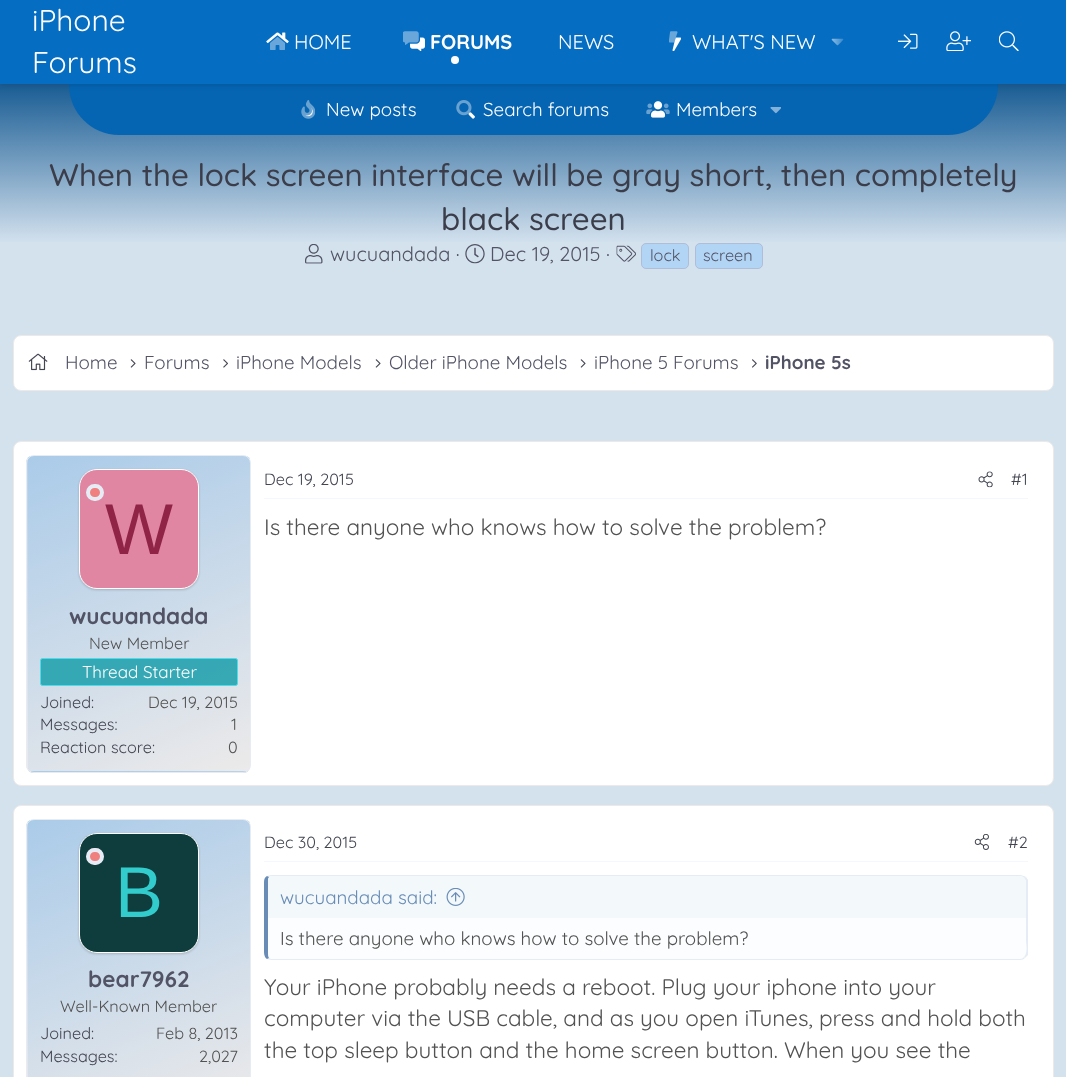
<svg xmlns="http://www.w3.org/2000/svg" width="1066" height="1077">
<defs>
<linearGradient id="g1" gradientUnits="userSpaceOnUse" x1="533" y1="84" x2="533" y2="271"><stop offset="0.02" stop-color="#1d5f95"/><stop offset="0.85" stop-color="#d3e1ee"/></linearGradient>
<linearGradient id="g2" gradientUnits="userSpaceOnUse" x1="833" y1="42" x2="883" y2="42"><stop offset="0" stop-color="#056dc2" stop-opacity="0"/><stop offset="0.33" stop-color="#056dc2"/></linearGradient>
<clipPath id="clip1"><rect x="26" y="455" width="225" height="318" rx="8"/></clipPath>
<linearGradient id="g3" gradientUnits="userSpaceOnUse" x1="-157" y1="440" x2="-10" y2="787"><stop offset="0" stop-color="#aacbe9"/><stop offset="1" stop-color="#eceaea"/></linearGradient>
<linearGradient id="g4" gradientUnits="userSpaceOnUse" x1="65" y1="440" x2="212" y2="787"><stop offset="0" stop-color="#aacbe9"/><stop offset="1" stop-color="#eceaea"/></linearGradient>
<linearGradient id="g5" gradientUnits="userSpaceOnUse" x1="65" y1="755" x2="212" y2="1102"><stop offset="0" stop-color="#aacbe9"/><stop offset="1" stop-color="#eceaea"/></linearGradient>
<clipPath id="clip2"><rect x="26" y="819" width="225" height="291" rx="8"/></clipPath>
<linearGradient id="g6" gradientUnits="userSpaceOnUse" x1="-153" y1="802" x2="-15" y2="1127"><stop offset="0" stop-color="#aacbe9"/><stop offset="1" stop-color="#eceaea"/></linearGradient>
<linearGradient id="g7" gradientUnits="userSpaceOnUse" x1="70" y1="802" x2="208" y2="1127"><stop offset="0" stop-color="#aacbe9"/><stop offset="1" stop-color="#eceaea"/></linearGradient>
</defs>
<rect width="100%" height="100%" fill="#d4e2ee"/>
<rect y="84" width="1066" height="158" fill="url(#g1)"/>
<path d="M69 84h929v1c0 27.5-22.5 50-50 50h-829c-27.5 0-50-22.5-50-50z" fill="#0565b3"/>
<rect width="1066" height="84" fill="#00000033" filter="blur(3px)"/>
<rect width="1066" height="84" fill="#056dc2"/>
<text x="32" y="31" style="font-family:Quicksand;font-size:30px;fill:#fff">iPhone</text>
<text x="32" y="73" word-spacing="5" style="font-family:Quicksand;font-size:30px;fill:#fff">Forums </text>
<image x="266" y="32" width="23" height="18" href="media/1.png"/>
<text x="294" y="49" style="font-family:Quicksand;font-size:20px;fill:#fff">HOME</text>
<image x="403" y="31" width="22" height="20" href="media/2.png"/>
<text x="430" y="49" style="font-family:Quicksand;font-size:20px;font-weight:bold;fill:#fff">FORUMS</text>
<circle cx="455" cy="60" r="4" fill="#fff"/>
<text x="558" y="49" style="font-family:Quicksand;font-size:20px;fill:#fff">NEWS</text>
<image x="669" y="31" width="12" height="20" href="media/3.png"/>
<text x="692" y="49" style="font-family:Quicksand;font-size:20px;fill:#fff">WHAT'S NEW</text>
<image x="831" y="38" width="13" height="8" href="media/4.png"/>
<rect x="833" y="38" width="11" height="8" fill="url(#g2)"/>
<image x="898" y="33" width="20" height="16" href="media/5.png"/>
<image x="946" y="31" width="25" height="20" href="media/6.png"/>
<image x="999" y="31" width="20" height="20" href="media/7.png"/>
<image x="301" y="100" width="14" height="19" href="media/8.png"/>
<text x="326" y="116" style="font-family:Quicksand;font-size:18.75px;fill:#fff">New posts</text>
<image x="456" y="100" width="19" height="19" href="media/9.png"/>
<text x="483" y="116" style="font-family:Quicksand;font-size:18.75px;fill:#fff">Search forums</text>
<image x="646" y="101" width="24" height="17" href="media/10.png"/>
<text x="676" y="116" style="font-family:Quicksand;font-size:18.75px;fill:#fff">Members</text>
<image x="770" y="107" width="11" height="7" href="media/11.png"/>
<text x="49" y="186" style="font-family:Quicksand;font-size:31.25px;font-weight:500;fill:#3b3e4a">When the lock screen interface will be gray short, then completely</text>
<text x="441" y="230" style="font-family:Quicksand;font-size:31.25px;font-weight:500;fill:#3b3e4a">black screen</text>
<image x="305" y="244" width="18" height="20" href="media/12.png"/>
<text x="330" y="261" style="font-family:Quicksand;font-size:20px;fill:#525466">wucuandada ·</text>
<image x="465" y="244" width="20" height="20" href="media/13.png"/>
<text x="490" y="261" style="font-family:Quicksand;font-size:20px;fill:#525466">Dec 19, 2015 ·</text>
<image x="616" y="245" width="20" height="17" href="media/14.png"/>
<rect x="641.5" y="243.5" width="47" height="25" rx="4.5" fill="#b3d5f5" stroke="#afbdd9"/>
<text x="650" y="261" style="font-family:Quicksand;font-size:16.25px;fill:#525466">lock</text>
<rect x="695.5" y="243.5" width="67" height="25" rx="4.5" fill="#b3d5f5" stroke="#afbdd9"/>
<text x="703" y="261" style="font-family:Quicksand;font-size:16.25px;fill:#525466">screen</text>
<rect x="13.5" y="335.5" width="1040" height="55" rx="7.5" fill="#fff" stroke="#ede9e9"/>
<image x="28" y="353" width="20" height="18" href="media/15.png"/>
<text x="65" y="369" style="font-family:Quicksand;font-size:18.75px;fill:#525466">Home</text>
<image x="130" y="359" width="6" height="9" href="media/16.png"/>
<text x="144" y="369" style="font-family:Quicksand;font-size:18.75px;fill:#525466">Forums</text>
<image x="223" y="359" width="5" height="9" href="media/17.png"/>
<text x="236" y="369" style="font-family:Quicksand;font-size:18.75px;fill:#525466">iPhone Models</text>
<image x="375" y="359" width="6" height="9" href="media/16.png"/>
<text x="389" y="369" style="font-family:Quicksand;font-size:18.75px;fill:#525466">Older iPhone Models</text>
<image x="580" y="359" width="6" height="9" href="media/16.png"/>
<text x="594" y="369" style="font-family:Quicksand;font-size:18.75px;fill:#525466">iPhone 5 Forums</text>
<image x="752" y="359" width="5" height="9" href="media/18.png"/>
<text x="765" y="369" style="font-family:Quicksand;font-size:18.75px;font-weight:bold;fill:#525466">iPhone 5s</text>
<rect x="13.5" y="441.5" width="1040" height="344" rx="7.5" fill="#fff" stroke="#ede9e9"/>
<g clip-path="url(#clip1)">
<rect x="26" y="456" width="2" height="315" fill="url(#g3)"/>
<rect x="28" y="456" width="222" height="315" fill="url(#g4)"/>
<rect x="28" y="771" width="222" height="2" fill="url(#g5)"/>
</g>
<rect x="26.5" y="455.5" width="224" height="317" rx="7.5" fill="none" stroke="#e5ecf5"/>
<rect x="79" y="470" width="120" height="120" rx="18" fill="#0000002e" filter="blur(1px)"/>
<rect x="79.5" y="469.5" width="119" height="119" rx="17.5" fill="#e085a2" stroke="#fff"/>
<path d="M95 484c-11 0-11 17 0 17c11 0 11-17 0-17z" fill="#f08080"/>
<rect x="88" y="486" width="14" height="13" rx="6.5" fill="none" stroke="#e5ecf5" stroke-width="4"/>
<text x="105" y="554" style="font-family:Liberation Sans;font-size:72px;fill:#8f2446">W</text>
<text x="69" y="624" style="font-family:Quicksand;font-size:22.5px;font-weight:bold;fill:#525466">wucuandada</text>
<text x="89" y="649" style="font-family:Quicksand;font-size:16.25px;fill:#525252">New Member</text>
<rect x="40.5" y="658.5" width="197" height="27" rx="2" fill="#1ea0acde" stroke="#4fdbe8"/>
<text x="82" y="678" style="font-family:Quicksand;font-size:17px;fill:#fff">Thread Starter</text>
<text x="40" y="708" style="font-family:Quicksand;font-size:16.25px;fill:#434551">Joined:</text>
<text x="148" y="708" style="font-family:Quicksand;font-size:16.25px;fill:#525252">Dec 19, 2015</text>
<text x="40" y="730" style="font-family:Quicksand;font-size:16.25px;fill:#434551">Messages:</text>
<text x="231" y="730" style="font-family:Quicksand;font-size:16.25px;fill:#525252">1</text>
<text x="40" y="753" style="font-family:Quicksand;font-size:16.25px;fill:#434551">Reaction score:</text>
<text x="228" y="753" style="font-family:Quicksand;font-size:16.25px;fill:#525252">0</text>
<rect x="264" y="498" width="764" height="1" fill="#f4f7fb"/>
<text x="264" y="485" style="font-family:Quicksand;font-size:16.25px;fill:#434551">Dec 19, 2015</text>
<image x="978" y="471" width="15" height="17" href="media/19.png"/>
<text x="1011" y="485" style="font-family:Quicksand;font-size:16.25px;fill:#434551">#1</text>
<text x="264" y="535" style="font-family:Quicksand;font-size:22.5px;fill:#525252">Is there anyone who knows how to solve the problem?</text>
<rect x="13.5" y="805.5" width="1040" height="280" rx="7.5" fill="#fff" stroke="#ede9e9"/>
<g clip-path="url(#clip2)">
<rect x="26" y="820" width="2" height="257" fill="url(#g6)"/>
<rect x="28" y="820" width="222" height="257" fill="url(#g7)"/>
</g>
<rect x="26.5" y="819.5" width="224" height="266" rx="7.5" fill="none" stroke="#e5ecf5"/>
<rect x="79" y="834" width="120" height="120" rx="18" fill="#0000002e" filter="blur(1px)"/>
<rect x="79.5" y="833.5" width="119" height="119" rx="17.5" fill="#0f3d3d" stroke="#fff"/>
<path d="M95 848c-11 0-11 16.5 0 16.5c11 0 11-16.5 0-16.5z" fill="#f08080"/>
<rect x="88" y="850" width="14" height="13" rx="6.5" fill="none" stroke="#e5ecf5" stroke-width="4"/>
<text x="115" y="917" style="font-family:Liberation Sans;font-size:72px;fill:#3cc">B</text>
<text x="88" y="987" style="font-family:Quicksand;font-size:22.5px;font-weight:bold;fill:#525466">bear7962</text>
<text x="60" y="1012" style="font-family:Quicksand;font-size:16.25px;fill:#525252">Well-Known Member</text>
<text x="40" y="1039" style="font-family:Quicksand;font-size:16.25px;fill:#434551">Joined:</text>
<text x="156" y="1039" style="font-family:Quicksand;font-size:16.25px;fill:#525252">Feb 8, 2013</text>
<text x="40" y="1062" style="font-family:Quicksand;font-size:16.25px;fill:#434551">Messages:</text>
<text x="199" y="1062" style="font-family:Quicksand;font-size:16.25px;fill:#525252">2,027</text>
<rect x="264" y="861" width="764" height="1" fill="#f4f7fb"/>
<text x="264" y="848" style="font-family:Quicksand;font-size:16.25px;fill:#434551">Dec 30, 2015</text>
<image x="974" y="834" width="15" height="16" href="media/20.png"/>
<text x="1008" y="848" style="font-family:Quicksand;font-size:16.25px;fill:#434551">#2</text>
<path d="M271 876h749c3 0 6 3 6 6v70c0 4-3 7-6 7h-749c-2 0-3-3-3-7v-70c0-3 1-6 3-6z" fill="#fbfdfe"/>
<path d="M271 875l-4 1l2 1l2-1h749c2 0 3 1 4 2l2-1c-2-1-4-2-6-2z" fill="#e5ecf5"/>
<path d="M1028 955l-3 3l-1-1c4-4 2-13 2-17v-59l-2-3l2-1l2 3z" fill="#e5ecf5"/>
<path d="M271 960h749c2 0 4-1 5-2l-1-1c-1 1-2 2-4 2h-749l-2-1l-2 1z" fill="#e5ecf5"/>
<path d="M267 876c-2 1-3 3-3 6v70c0 3 1 6 3 7l2-1c-1-1-1-3-1-6v-70c0-2 0-4 1-5z" fill="#688cb6"/>
<path d="M271 876h749c3 0 5 2 6 5v37h-758v-39c1-1 2-3 3-3z" fill="#f3f8fb"/>
<text x="280" y="904" style="font-family:Quicksand;font-size:18.75px;fill:#688cb6">wucuandada said:</text>
<image x="446" y="888" width="19" height="18" href="media/21.png"/>
<text x="280" y="945" style="font-family:Quicksand;font-size:18.75px;fill:#525252">Is there anyone who knows how to solve the problem?</text>
<text x="264" y="995" style="font-family:Quicksand;font-size:22.5px;fill:#525252">Your iPhone probably needs a reboot. Plug your iphone into your</text>
<text x="264" y="1026" style="font-family:Quicksand;font-size:22.5px;fill:#525252">computer via the USB cable, and as you open iTunes, press and hold both</text>
<text x="264" y="1058" style="font-family:Quicksand;font-size:22.5px;fill:#525252">the top sleep button and the home screen button. When you see the</text>
</svg>
